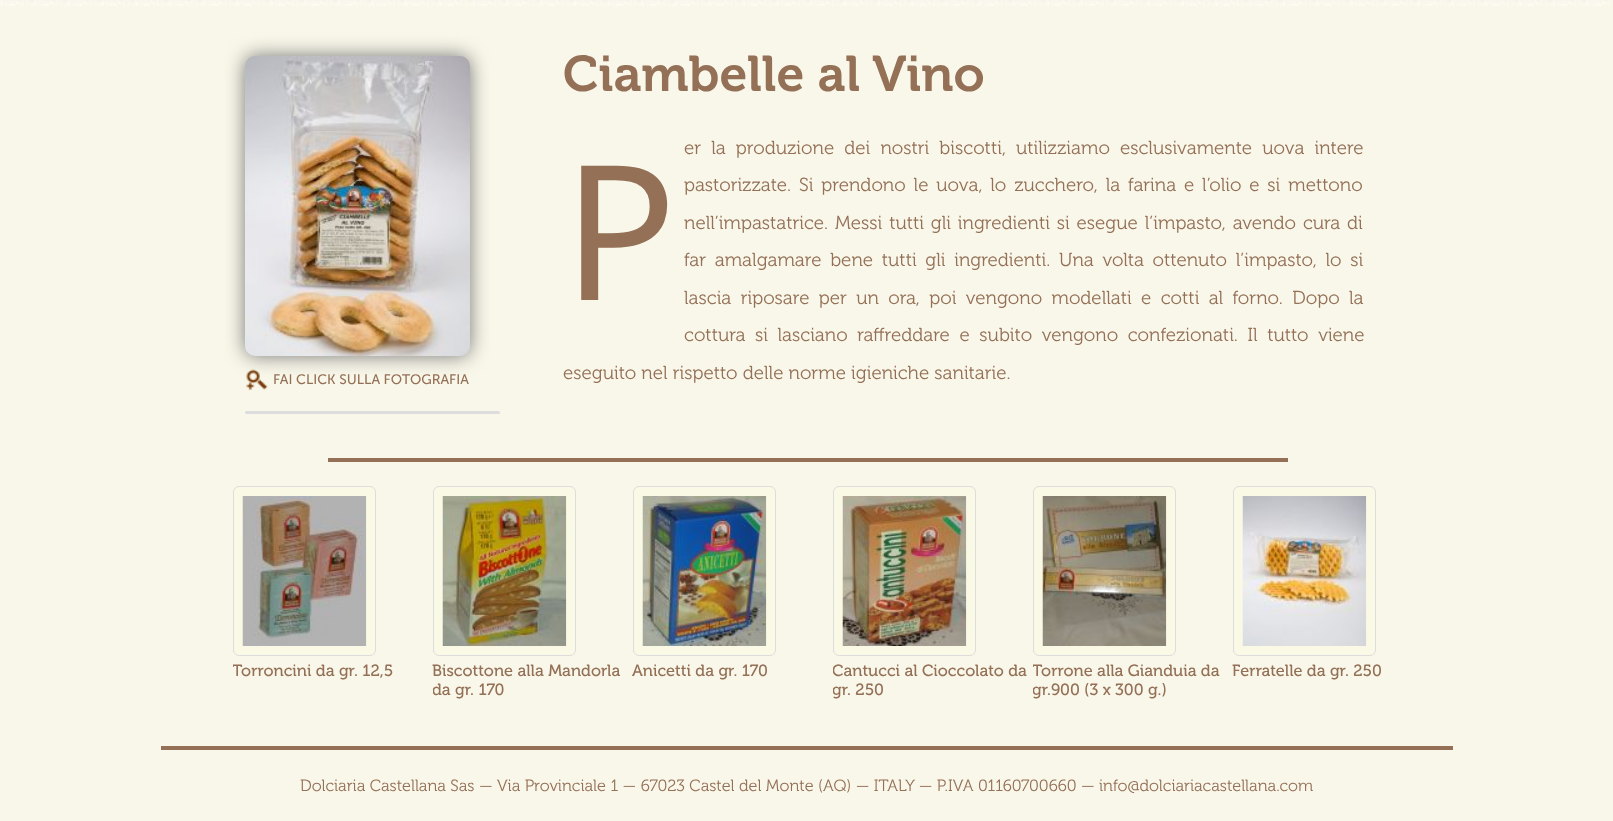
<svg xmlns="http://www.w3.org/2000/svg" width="1613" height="821">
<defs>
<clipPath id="clip1"><rect x="233" y="486" width="200" height="219"/></clipPath>
<clipPath id="clip2"><rect x="433" y="486" width="200" height="219"/></clipPath>
<clipPath id="clip3"><rect x="833" y="486" width="200" height="219"/></clipPath>
<clipPath id="clip4"><rect x="1033" y="486" width="200" height="219"/></clipPath>
</defs>
<rect width="100%" height="100%" fill="#f9f7e9"/>
<image x="0" y="0" width="1610" height="6" href="media/1.png"/>
<text x="563" y="91" style="font-family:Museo;font-size:50px;font-weight:600;fill:#947057">Ciambelle al Vino</text>
<image x="246" y="369" width="22" height="21" href="media/3.png"/>
<rect x="245" y="56" width="225" height="300" rx="10" fill="#777" filter="blur(9.5px)"/>
<image x="245" y="56" width="225" height="300" href="media/2.png"/>
<text x="273" y="384" style="font-family:Museo Sans;font-size:13.75px;fill:#947057">FAI CLICK SULLA FOTOGRAFIA</text>
<rect x="245" y="411" width="255" height="3" rx="1.5" fill="#ddd"/>
<text x="684" y="154" word-spacing="5" style="font-family:Museo;font-size:18.75px;font-weight:300;fill:#947057">er la produzione dei nostri biscotti, utilizziamo esclusivamente uova intere</text>
<text x="563" y="300" style="font-family:Noto Sans;font-size:188px;fill:#947057">P</text>
<text x="684" y="191" word-spacing="2.75" style="font-family:Museo;font-size:18.75px;font-weight:300;fill:#947057">pastorizzate. Si prendono le uova, lo zucchero, la farina e l’olio e si mettono</text>
<text x="684" y="229" word-spacing="1.75" style="font-family:Museo;font-size:18.75px;font-weight:300;fill:#947057">nell’impastatrice. Messi tutti gli ingredienti si esegue l’impasto, avendo cura di</text>
<text x="684" y="266" word-spacing="3.6" style="font-family:Museo;font-size:18.75px;font-weight:300;fill:#947057">far amalgamare bene tutti gli ingredienti. Una volta ottenuto l’impasto, lo si</text>
<text x="684" y="304" word-spacing="4.25" style="font-family:Museo;font-size:18.75px;font-weight:300;fill:#947057">lascia riposare per un ora, poi vengono modellati e cotti al forno. Dopo la</text>
<text x="684" y="341" word-spacing="4.5" style="font-family:Museo;font-size:18.75px;font-weight:300;fill:#947057">cottura si lasciano raffreddare e subito vengono confezionati. Il tutto viene</text>
<text x="563" y="379" style="font-family:Museo;font-size:18.75px;font-weight:300;fill:#947057">eseguito nel rispetto delle norme igieniche sanitarie.</text>
<rect x="328" y="458" width="960" height="4" fill="#947057"/>
<rect x="233.5" y="486.5" width="142" height="169" rx="5.5" fill="#f9f9e5" stroke="#ddd"/>
<image x="242" y="496" width="125" height="150" href="media/4.png"/>
<g clip-path="url(#clip1)">
<text x="232" y="676" style="font-family:Museo;font-size:16.25px;fill:#947057">Torroncini da gr. 12,5</text>
</g>
<rect x="433.5" y="486.5" width="142" height="169" rx="5.5" fill="#f9f9e5" stroke="#ddd"/>
<image x="442" y="496" width="125" height="150" href="media/5.png"/>
<text x="432" y="676" style="font-family:Museo;font-size:16.25px;fill:#947057">Biscottone alla Mandorla</text>
<g clip-path="url(#clip2)">
<text x="432" y="695" style="font-family:Museo;font-size:16.25px;fill:#947057">da gr. 170</text>
</g>
<rect x="633.5" y="486.5" width="142" height="169" rx="5.5" fill="#f9f9e5" stroke="#ddd"/>
<image x="642" y="496" width="125" height="150" href="media/6.png"/>
<text x="632" y="676" style="font-family:Museo;font-size:16.25px;fill:#947057">Anicetti da gr. 170</text>
<rect x="833.5" y="486.5" width="142" height="169" rx="5.5" fill="#f9f9e5" stroke="#ddd"/>
<image x="842" y="496" width="125" height="150" href="media/7.png"/>
<g clip-path="url(#clip3)">
<text x="832" y="676" style="font-family:Museo;font-size:16.25px;fill:#947057">Cantucci al Cioccolato da</text>
<text x="832" y="695" style="font-family:Museo;font-size:16.25px;fill:#947057">gr. 250</text>
</g>
<rect x="1033.5" y="486.5" width="142" height="169" rx="5.5" fill="#f9f9e5" stroke="#ddd"/>
<image x="1042" y="496" width="125" height="150" href="media/8.png"/>
<g clip-path="url(#clip4)">
<text x="1032" y="676" style="font-family:Museo;font-size:16.25px;fill:#947057">Torrone alla Gianduia da</text>
<text x="1032" y="695" style="font-family:Museo;font-size:16.25px;fill:#947057">gr.900 (3 x 300 g.)</text>
</g>
<rect x="1233.5" y="486.5" width="142" height="169" rx="5.5" fill="#f9f9e5" stroke="#ddd"/>
<image x="1242" y="496" width="125" height="150" href="media/9.png"/>
<text x="1232" y="676" style="font-family:Museo;font-size:16.25px;fill:#947057">Ferratelle da gr. 250</text>
<rect x="161" y="746" width="1292" height="4" fill="#947057"/>
<text x="300" y="791" style="font-family:Museo;font-size:16.25px;font-weight:300;fill:#947057">Dolciaria Castellana Sas —</text>
<text x="497" y="791" style="font-family:Museo;font-size:16.25px;font-weight:300;fill:#947057">Via Provinciale 1 — 67023 Castel del Monte (AQ) — ITALY — P.IVA 01160700660 — info@dolciariacastellana.com</text>
</svg>
